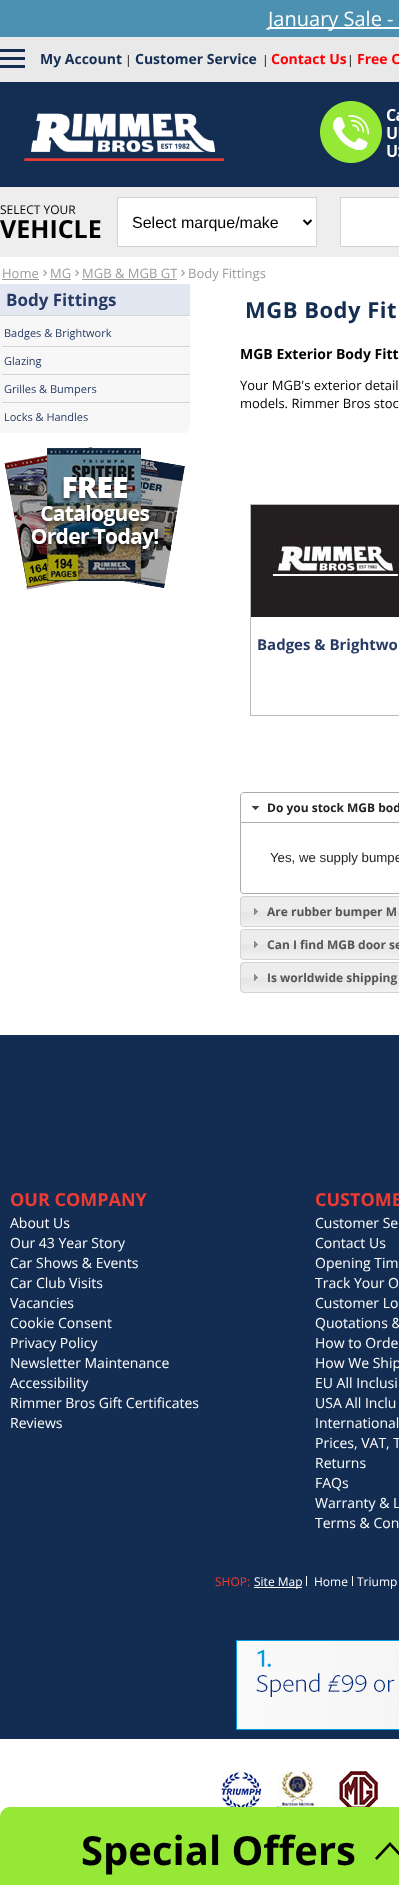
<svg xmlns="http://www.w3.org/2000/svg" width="399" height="1885">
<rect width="100%" height="100%" fill="#fff"/>
<rect width="399" height="37" fill="#4d91b2"/>
<rect x="268" y="27" width="131" height="2" fill="#fff"/>
<text x="268" y="26" style="font-family:Open Sans;font-size:20px;fill:#fff">January Sale -</text>
<rect y="82" width="399" height="105" fill="#142e53"/>
<rect y="37" width="399" height="45" fill="#e9e9e9"/>
<rect y="49" width="25" height="3" fill="#142e53"/>
<rect y="57" width="25" height="3" fill="#142e53"/>
<rect y="65" width="25" height="3" fill="#142e53"/>
<text x="40" y="64" style="font-family:Open Sans;font-size:14px;font-weight:bold;fill:#142e53">My Account</text>
<text x="125" y="64" style="font-family:Open Sans;font-size:12px;fill:#000">|</text>
<text x="135" y="64" style="font-family:Open Sans;font-size:14px;font-weight:bold;fill:#142e53">Customer Service</text>
<text x="262" y="64" style="font-family:Open Sans;font-size:12px;fill:#000">|</text>
<text x="271" y="64" style="font-family:Open Sans;font-size:14px;font-weight:bold;fill:#ff0004">Contact Us</text>
<text x="347" y="64" style="font-family:Open Sans;font-size:12px;fill:#000">|</text>
<text x="357" y="64" style="font-family:Open Sans;font-size:14px;font-weight:bold;fill:#ff0004">Free C</text>
<image x="24" y="113" width="200" height="48" href="media/1.png"/>
<image x="320" y="101" width="79" height="62" href="media/2.png"/>
<rect y="187" width="399" height="70" fill="#eee"/>
<text x="0" y="214" style="font-family:Open Sans;font-size:12px;fill:#000">SELECT YOUR</text>
<text x="0" y="238" style="font-family:Open Sans;font-size:25px;font-weight:bold;fill:#000">VEHICLE</text>
<rect x="117.5" y="197.5" width="199" height="49" fill="#fff" stroke="#d3d3d3"/>
<path d="M303.5 220l4 4l4-4" fill="none" stroke="#000" stroke-width="2"/>
<text x="132" y="228" style="font-family:Liberation Sans;font-size:16px;fill:#000">Select marque/make</text>
<rect x="340.5" y="197.5" width="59" height="49" fill="#fff" stroke="#d3d3d3"/>
<path d="M10 1807h389c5.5 0 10 4.5 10 10v68h-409v-68c0-5.5 4.5-10 10-10z" fill="#96e837"/>
<text x="81" y="1865" style="font-family:Open Sans;font-size:40px;font-weight:bold;fill:#000">Special Offers</text>
<image x="375" y="1842" width="24" height="18" href="media/3.png"/>
<text x="2" y="278" style="font-family:Open Sans;font-size:13px;fill:#999da0">Home</text>
<rect x="2" y="279" width="37" height="1" fill="#999da0"/>
<image x="40" y="269" width="7" height="7" href="media/4.png"/>
<text x="50" y="278" style="font-family:Open Sans;font-size:13px;fill:#999da0">MG</text>
<rect x="50" y="279" width="21" height="1" fill="#999da0"/>
<image x="72" y="269" width="7" height="7" href="media/4.png"/>
<text x="82" y="278" style="font-family:Open Sans;font-size:13px;fill:#999da0">MGB &amp; MGB GT</text>
<rect x="82" y="279" width="95" height="1" fill="#999da0"/>
<image x="178" y="269" width="7" height="7" href="media/4.png"/>
<text x="188" y="278" style="font-family:Open Sans;font-size:13px;fill:#999da0">Body Fittings</text>
<rect y="284" width="190" height="31" fill="#e2e7f2"/>
<rect y="315" width="190" height="1" fill="#d4d4d4"/>
<text x="6" y="306" style="font-family:Open Sans;font-size:17px;font-weight:bold;fill:#283b65">Body Fittings</text>
<rect y="316" width="188" height="117" fill="#f7f7f7"/>
<rect x="188" y="319" width="2" height="27" fill="#f7f7f7"/>
<rect x="2" y="346" width="188" height="1" fill="#d4d4d4"/>
<text x="4" y="337" style="font-family:Open Sans;font-size:11px;fill:#283b65">Badges &amp; Brightwork</text>
<rect x="188" y="347" width="2" height="27" fill="#f7f7f7"/>
<rect x="2" y="374" width="188" height="1" fill="#d4d4d4"/>
<text x="4" y="365" style="font-family:Open Sans;font-size:11px;fill:#283b65">Glazing</text>
<rect x="188" y="375" width="2" height="27" fill="#f7f7f7"/>
<rect x="2" y="402" width="188" height="1" fill="#d4d4d4"/>
<text x="4" y="393" style="font-family:Open Sans;font-size:11px;fill:#283b65">Grilles &amp; Bumpers</text>
<rect x="188" y="403" width="2" height="27" fill="#f7f7f7"/>
<text x="4" y="421" style="font-family:Open Sans;font-size:11px;fill:#283b65">Locks &amp; Handles</text>
<image x="4" y="447" width="181" height="143" href="media/5.png"/>
<text x="245" y="318" style="font-family:Open Sans;font-size:22px;font-weight:bold;letter-spacing:0.5px;fill:#142e53">MGB Body Fit</text>
<text x="240" y="359" style="font-family:Open Sans;font-size:14px;font-weight:bold;fill:#000">MGB Exterior Body Fitt</text>
<text x="240" y="390" style="font-family:Open Sans;font-size:13px;fill:#000">Your MGB's exterior detail</text>
<text x="240" y="408" style="font-family:Open Sans;font-size:13px;fill:#000">models. Rimmer Bros stoc</text>
<rect x="250.5" y="504.5" width="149" height="211" fill="none" stroke="#b9b9b9"/>
<image x="251" y="505" width="148" height="112" href="media/6.png"/>
<text x="257" y="650" style="font-family:Open Sans;font-size:15px;font-weight:bold;fill:#283b65">Badges &amp; Brightwo</text>
<path d="M244 792.5h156c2 0 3.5 1.5 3.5 3.5v26.5h-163v-26.5c0-2 1.5-3.5 3.5-3.5z" fill="none" stroke="#aaa"/>
<image x="252" y="806" width="7" height="4" href="media/7.png"/>
<text x="267" y="812" style="font-family:Open Sans;font-size:12px;font-weight:bold;fill:#222">Do you stock MGB bod</text>
<path d="M240 823h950v67c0 2-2 4-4 4h-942c-2 0-4-2-4-4zm1 0h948v67c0 2-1 3-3 3h-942c-2 0-3-1-3-3z" fill="#aaa" fill-rule="evenodd"/>
<text x="270" y="862" style="font-family:Liberation Sans;font-size:13.25px;fill:#222">Yes, we supply bumpe</text>
<image x="240" y="896" width="159" height="31" href="media/8.png"/>
<rect x="240.5" y="896.5" width="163" height="30" rx="3.5" fill="none" stroke="#d3d3d3"/>
<image x="254" y="908" width="4" height="7" href="media/9.png"/>
<text x="267" y="916" style="font-family:Open Sans;font-size:12px;font-weight:bold;fill:#555">Are rubber bumper M</text>
<image x="240" y="929" width="159" height="31" href="media/8.png"/>
<rect x="240.5" y="929.5" width="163" height="30" rx="3.5" fill="none" stroke="#d3d3d3"/>
<image x="254" y="941" width="4" height="7" href="media/9.png"/>
<text x="267" y="949" style="font-family:Open Sans;font-size:12px;font-weight:bold;fill:#555">Can I find MGB door se</text>
<image x="240" y="962" width="159" height="31" href="media/8.png"/>
<rect x="240.5" y="962.5" width="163" height="30" rx="3.5" fill="none" stroke="#d3d3d3"/>
<image x="254" y="974" width="4" height="7" href="media/9.png"/>
<text x="267" y="982" style="font-family:Open Sans;font-size:12px;font-weight:bold;fill:#555">Is worldwide shipping</text>
<rect y="1035" width="399" height="704" fill="#132c52"/>
<text x="10" y="1206" style="font-family:Open Sans;font-size:18px;font-weight:bold;fill:#ee3b33">OUR COMPANY</text>
<text x="10" y="1228" style="font-family:Open Sans;font-size:14px;fill:#fff">About Us</text>
<text x="10" y="1248" style="font-family:Open Sans;font-size:14px;fill:#fff">Our 43 Year Story</text>
<text x="10" y="1268" style="font-family:Open Sans;font-size:14px;fill:#fff">Car Shows &amp; Events</text>
<text x="10" y="1288" style="font-family:Open Sans;font-size:14px;fill:#fff">Car Club Visits</text>
<text x="10" y="1308" style="font-family:Open Sans;font-size:14px;fill:#fff">Vacancies</text>
<text x="10" y="1328" style="font-family:Open Sans;font-size:14px;fill:#fff">Cookie Consent</text>
<text x="10" y="1348" style="font-family:Open Sans;font-size:14px;fill:#fff">Privacy Policy</text>
<text x="10" y="1368" style="font-family:Open Sans;font-size:14px;fill:#fff">Newsletter Maintenance</text>
<text x="10" y="1388" style="font-family:Open Sans;font-size:14px;fill:#fff">Accessibility</text>
<text x="10" y="1408" style="font-family:Open Sans;font-size:14px;fill:#fff">Rimmer Bros Gift Certificates</text>
<text x="10" y="1428" style="font-family:Open Sans;font-size:14px;fill:#fff">Reviews</text>
<text x="315" y="1206" style="font-family:Open Sans;font-size:18px;font-weight:bold;fill:#ee3b33">CUSTOME</text>
<text x="315" y="1228" style="font-family:Open Sans;font-size:14px;fill:#fff">Customer Se</text>
<text x="315" y="1248" style="font-family:Open Sans;font-size:14px;fill:#fff">Contact Us</text>
<text x="315" y="1268" style="font-family:Open Sans;font-size:14px;fill:#fff">Opening Tim</text>
<text x="315" y="1288" style="font-family:Open Sans;font-size:14px;fill:#fff">Track Your O</text>
<text x="315" y="1308" style="font-family:Open Sans;font-size:14px;fill:#fff">Customer Lo</text>
<text x="315" y="1328" style="font-family:Open Sans;font-size:14px;fill:#fff">Quotations &amp;</text>
<text x="315" y="1348" style="font-family:Open Sans;font-size:14px;fill:#fff">How to Orde</text>
<text x="315" y="1368" style="font-family:Open Sans;font-size:14px;fill:#fff">How We Ship</text>
<text x="315" y="1388" style="font-family:Open Sans;font-size:14px;fill:#fff">EU All Inclusi</text>
<text x="315" y="1408" style="font-family:Open Sans;font-size:14px;fill:#fff">USA All Inclu</text>
<text x="315" y="1428" style="font-family:Open Sans;font-size:14px;fill:#fff">International</text>
<text x="315" y="1448" style="font-family:Open Sans;font-size:14px;fill:#fff">Prices, VAT, T</text>
<text x="315" y="1468" style="font-family:Open Sans;font-size:14px;fill:#fff">Returns</text>
<text x="315" y="1488" style="font-family:Open Sans;font-size:14px;fill:#fff">FAQs</text>
<text x="315" y="1508" style="font-family:Open Sans;font-size:14px;fill:#fff">Warranty &amp; L</text>
<text x="315" y="1528" style="font-family:Open Sans;font-size:14px;fill:#fff">Terms &amp; Con</text>
<text x="215" y="1586" style="font-family:Open Sans;font-size:12px;fill:#ee3b33">SHOP:</text>
<rect x="254" y="1587" width="48" height="1" fill="#fff"/>
<text x="254" y="1586" style="font-family:Open Sans;font-size:12px;fill:#fff">Site Map</text>
<rect x="306" y="1576" width="1" height="10" fill="#fff"/>
<text x="314" y="1586" style="font-family:Open Sans;font-size:12px;fill:#fff">Home</text>
<rect x="352" y="1576" width="1" height="10" fill="#fff"/>
<text x="357" y="1586" style="font-family:Open Sans;font-size:12px;fill:#fff">Triump</text>
<image x="236" y="1640" width="163" height="90" href="media/10.png"/>
<image x="214" y="1771" width="185" height="36" href="media/11.png"/>
</svg>
